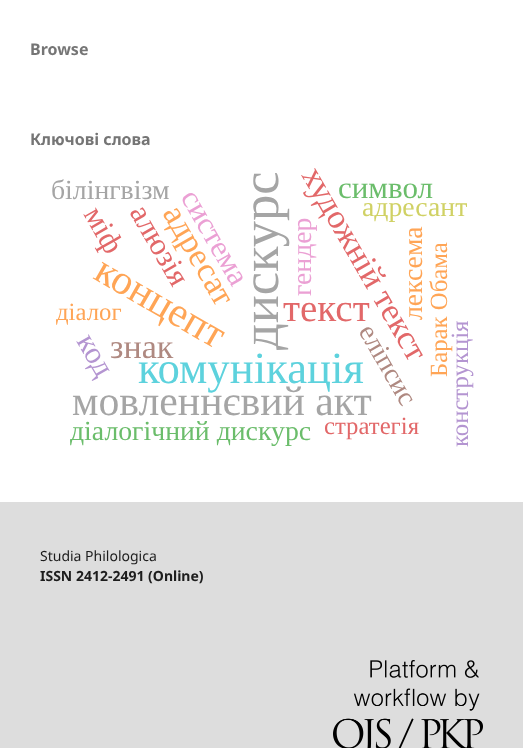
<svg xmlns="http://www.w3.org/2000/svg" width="523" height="748">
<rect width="100%" height="100%" fill="#fff"/>
<text x="30" y="55" style="font-family:Noto Sans;font-size:16px;font-weight:bold;fill:#757575">Browse</text>
<text x="30" y="145" style="font-family:Noto Sans;font-size:16px;font-weight:bold;fill:#757575">Ключові слова</text>
<text x="51" y="199" style="font-family:Liberation Serif;font-size:27.75px;fill:#a5a5a5">білінгвізм</text>
<text x="278" y="350" transform="rotate(-90 278 350)" style="font-family:Liberation Serif;font-size:52.5px;fill:#a5a5a5">дискурс</text>
<text x="283" y="321" style="font-family:Liberation Serif;font-size:39px;fill:#e26869">текст</text>
<text x="301" y="175" transform="rotate(60 301 175)" style="font-family:Liberation Serif;font-size:34px;fill:#e26869">художній текст</text>
<text x="338" y="198" style="font-family:Liberation Serif;font-size:31px;fill:#6bbd6b">символ</text>
<text x="83" y="214" transform="rotate(60 83 214)" style="font-family:Liberation Serif;font-size:31px;fill:#e26869">міф</text>
<text x="92" y="278" transform="rotate(30 92 278)" style="font-family:Liberation Serif;font-size:41.75px;fill:#ffa556">концепт</text>
<text x="162" y="213" transform="rotate(60 162 213)" style="font-family:Liberation Serif;font-size:34px;fill:#ffa556">адресат</text>
<text x="180" y="197" transform="rotate(60 180 197)" style="font-family:Liberation Serif;font-size:31px;fill:#eba0d4">система</text>
<text x="129" y="212" transform="rotate(60 129 212)" style="font-family:Liberation Serif;font-size:31px;fill:#e26869">алюзія</text>
<text x="362" y="216" style="font-family:Liberation Serif;font-size:27.75px;fill:#d0d164">адресант</text>
<text x="311" y="296" transform="rotate(-90 311 296)" style="font-family:Liberation Serif;font-size:27.75px;fill:#eba0d4">гендер</text>
<text x="422" y="320" transform="rotate(-90 422 320)" style="font-family:Liberation Serif;font-size:27.75px;fill:#ffa556">лексема</text>
<text x="447" y="377" transform="rotate(-90 447 377)" style="font-family:Liberation Serif;font-size:24.75px;fill:#ffa556">Барак Обама</text>
<text x="56" y="320" style="font-family:Liberation Serif;font-size:24.75px;fill:#ffa556">діалог</text>
<text x="76" y="341" transform="rotate(60 76 341)" style="font-family:Liberation Serif;font-size:31px;fill:#b495d1">код</text>
<text x="110" y="358" style="font-family:Liberation Serif;font-size:34px;fill:#af8981">знак</text>
<text x="138" y="383" style="font-family:Liberation Serif;font-size:44.75px;fill:#5dd2dd">комунікація</text>
<text x="72" y="415" style="font-family:Liberation Serif;font-size:41.75px;fill:#a5a5a5">мовленнєвий акт</text>
<text x="358" y="331" transform="rotate(60 358 331)" style="font-family:Liberation Serif;font-size:27.75px;fill:#af8981">еліпсис</text>
<text x="468" y="447" transform="rotate(-90 468 447)" style="font-family:Liberation Serif;font-size:24.75px;fill:#b495d1">конструкція</text>
<text x="70" y="440" style="font-family:Liberation Serif;font-size:27.75px;fill:#6bbd6b">діалогічний дискурс</text>
<text x="324" y="434" style="font-family:Liberation Serif;font-size:24.75px;fill:#e26869">стратегія</text>
<rect y="502" width="523" height="246" fill="#ddd"/>
<text x="40" y="561" style="font-family:Noto Sans;font-size:14px;fill:#1d1d1d">Studia Philologica</text>
<text x="40" y="581" style="font-family:Noto Sans;font-size:14px;font-weight:bold;fill:#1d1d1d">ISSN 2412-2491 (Online)</text>
<image x="333" y="660" width="150" height="88" href="media/1.png"/>
</svg>
